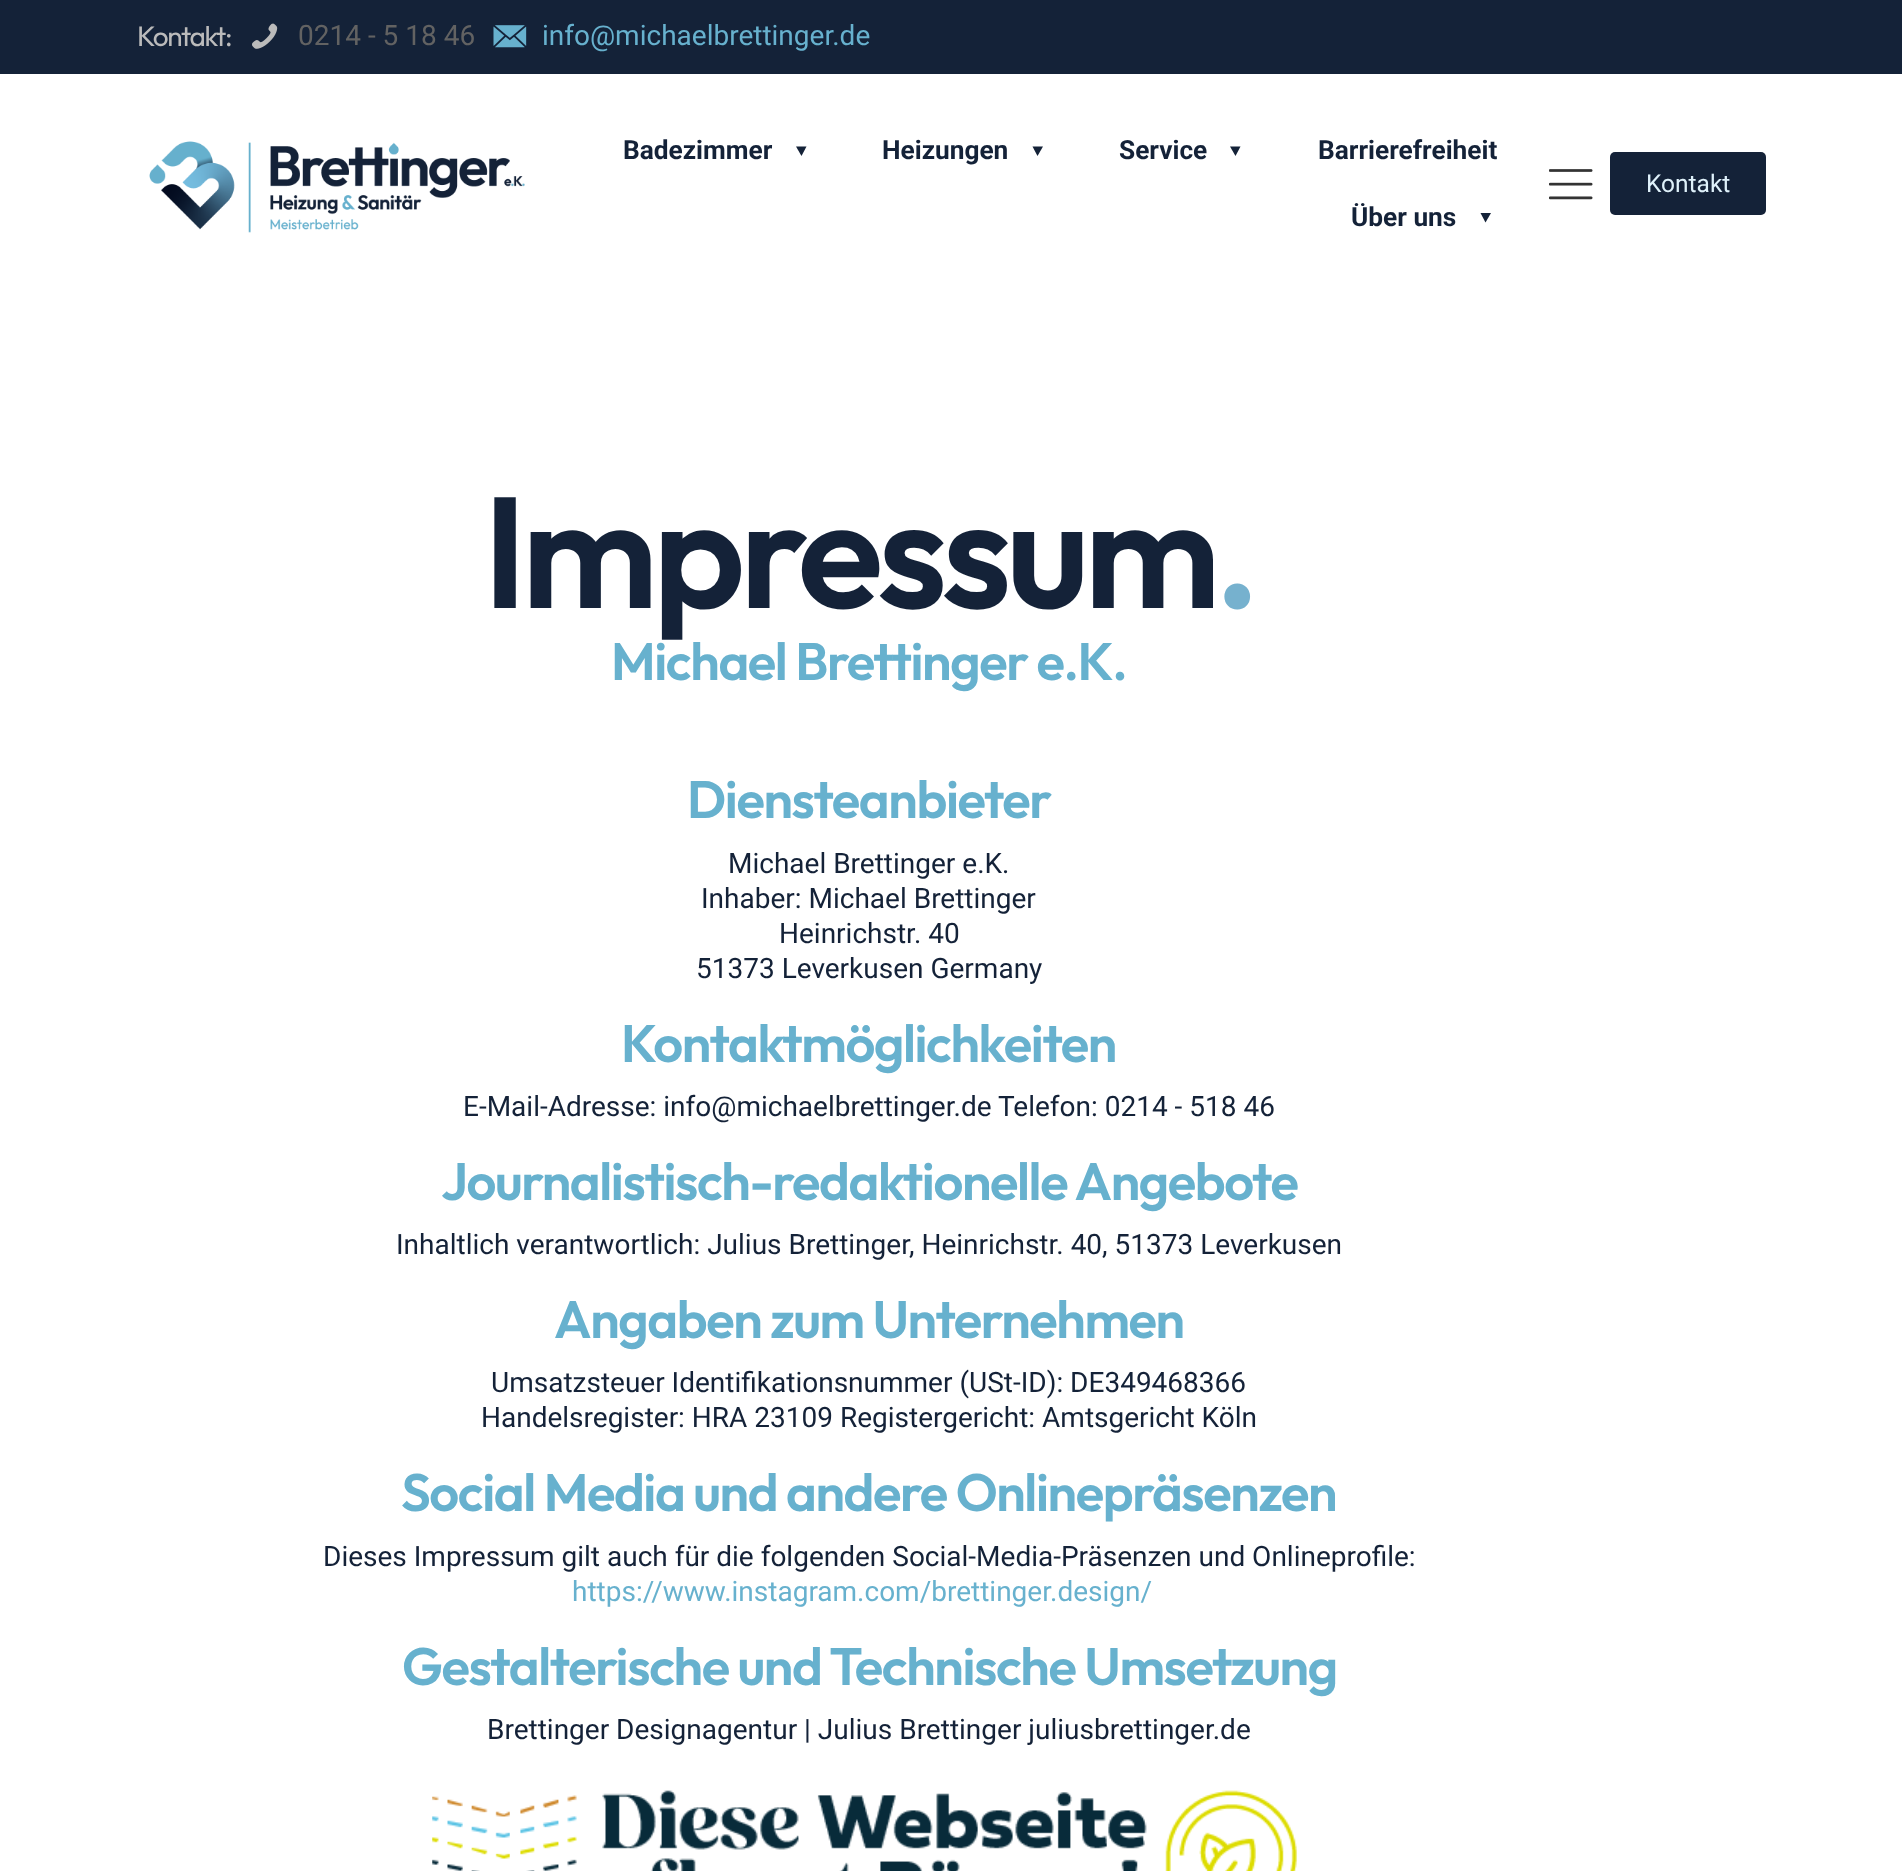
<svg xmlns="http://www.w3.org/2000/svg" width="1902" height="1871">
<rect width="100%" height="100%" fill="#fff"/>
<rect width="1902" height="74" fill="#142238"/>
<text x="137" y="46" style="font-family:'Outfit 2';font-size:28px;font-weight:100;letter-spacing:-1.4px;fill:#bbb">Kontakt:</text>
<image x="252" y="23" width="26" height="26" href="media/1.png"/>
<text x="298" y="45" style="font-family:Roboto;font-size:28px;fill:#626262">0214 - 5 18 46</text>
<image x="493" y="25" width="34" height="23" href="media/2.png"/>
<text x="542" y="45" style="font-family:Roboto;font-size:28px;fill:#67b1ce">info@michaelbrettinger.de</text>
<image x="149" y="141" width="376" height="92" href="media/3.png"/>
<text x="623" y="159" style="font-family:Roboto;font-size:26.25px;font-weight:bold;fill:#142238">Badezimmer</text>
<path d="M806.5 146.5l-5 9.5l-5.5-9.5z" fill="#142238"/>
<text x="882" y="159" style="font-family:Roboto;font-size:26.25px;font-weight:bold;fill:#142238">Heizungen</text>
<path d="M1043 146.5l-5.5 9.5l-5-9.5z" fill="#142238"/>
<text x="1119" y="159" style="font-family:Roboto;font-size:26.25px;font-weight:bold;fill:#142238">Service</text>
<path d="M1240.5 146.5l-5 9.5l-5.5-9.5z" fill="#142238"/>
<text x="1318" y="159" style="font-family:Roboto;font-size:26.25px;font-weight:bold;fill:#142238">Barrierefreiheit</text>
<text x="1351" y="226" style="font-family:Roboto;font-size:26.25px;font-weight:bold;fill:#142238">Über uns</text>
<path d="M1491 213l-5.5 9.5l-5-9.5z" fill="#142238"/>
<image x="1549" y="169" width="44" height="31" href="media/4.png"/>
<rect x="1610" y="152" width="156" height="63" rx="5" fill="#142238"/>
<text x="1646" y="192" style="font-family:Roboto;font-size:24.5px;fill:#dff1fa">Kontakt</text>
<text x="483" y="608" style="font-family:Outfit;font-size:157.5px;font-weight:100;letter-spacing:-5.5px;fill:#142238">Impressum</text>
<text x="1214" y="608" style="font-family:Outfit;font-size:157.5px;font-weight:100;letter-spacing:-5.5px;fill:#76b1ce">.</text>
<text x="611" y="680" style="font-family:Outfit;font-size:52.5px;font-weight:100;letter-spacing:-1.4px;fill:#67b1ce">Michael Brettinger e.K.</text>
<text x="687" y="818" style="font-family:Outfit;font-size:52.5px;font-weight:100;letter-spacing:-1.4px;fill:#67b1ce">Diensteanbieter</text>
<text x="728" y="873" style="font-family:Roboto;font-size:28px;fill:#142238">Michael Brettinger e.K.</text>
<text x="701" y="908" style="font-family:Roboto;font-size:28px;fill:#142238">Inhaber: Michael Brettinger</text>
<text x="779" y="943" style="font-family:Roboto;font-size:28px;fill:#142238">Heinrichstr. 40</text>
<text x="696" y="978" style="font-family:Roboto;font-size:28px;fill:#142238">51373 Leverkusen Germany</text>
<text x="621" y="1062" style="font-family:Outfit;font-size:52.5px;font-weight:100;letter-spacing:-1.4px;fill:#67b1ce">Kontaktmöglichkeiten</text>
<text x="463" y="1116" style="font-family:Roboto;font-size:28px;fill:#142238">E-Mail-Adresse: info@michaelbrettinger.de Telefon: 0214 - 518 46</text>
<text x="441" y="1200" style="font-family:Outfit;font-size:52.5px;font-weight:100;letter-spacing:-1.4px;fill:#67b1ce">Journalistisch-redaktionelle Angebote</text>
<text x="396" y="1254" style="font-family:Roboto;font-size:28px;fill:#142238">Inhaltlich verantwortlich: Julius Brettinger, Heinrichstr. 40, 51373 Leverkusen</text>
<text x="554" y="1338" style="font-family:Outfit;font-size:52.5px;font-weight:100;letter-spacing:-1.4px;fill:#67b1ce">Angaben zum Unternehmen</text>
<text x="491" y="1392" style="font-family:Roboto;font-size:28px;fill:#142238">Umsatzsteuer Identifikationsnummer (USt-ID): DE349468366</text>
<text x="481" y="1427" style="font-family:Roboto;font-size:28px;fill:#142238">Handelsregister: HRA 23109 Registergericht: Amtsgericht Köln</text>
<text x="401" y="1511" style="font-family:Outfit;font-size:52.5px;font-weight:100;letter-spacing:-1.4px;fill:#67b1ce">Social Media und andere Onlinepräsenzen</text>
<text x="323" y="1566" style="font-family:Roboto;font-size:28px;fill:#142238">Dieses Impressum gilt auch für die folgenden Social-Media-Präsenzen und Onlineprofile:</text>
<text x="572" y="1601" style="font-family:Roboto;font-size:28px;fill:#67b1ce">https://www.instagram.com/brettinger.design/</text>
<text x="402" y="1685" style="font-family:Outfit;font-size:52.5px;font-weight:100;letter-spacing:-1.4px;fill:#67b1ce">Gestalterische und Technische Umsetzung</text>
<text x="487" y="1739" style="font-family:Roboto;font-size:28px;fill:#142238">Brettinger Designagentur | Julius Brettinger juliusbrettinger.de</text>
<image x="432" y="1790" width="865" height="81" href="media/5.png"/>
</svg>
